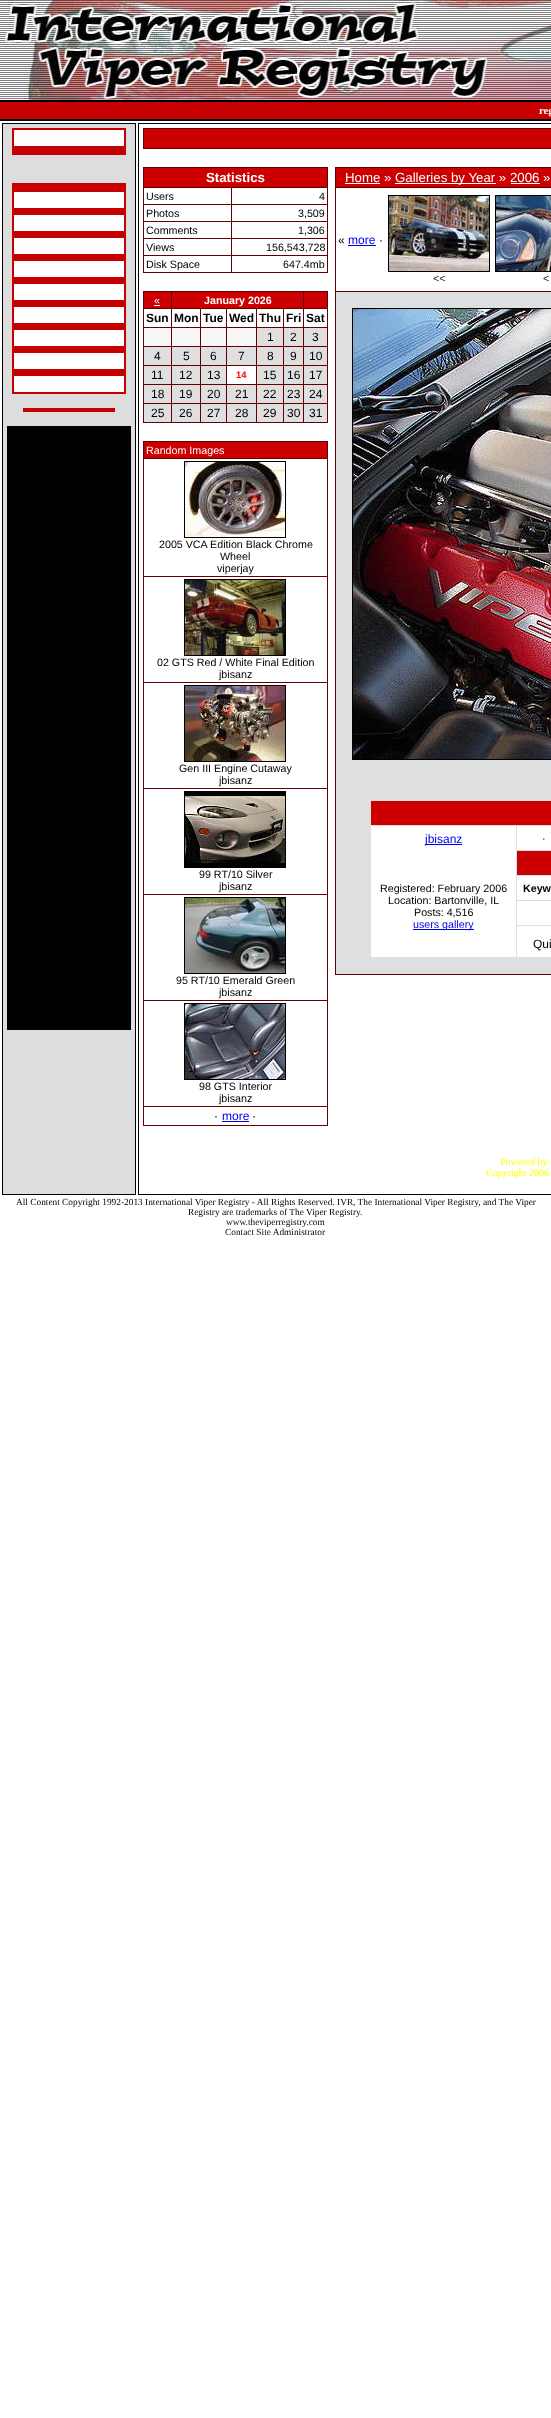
<svg xmlns="http://www.w3.org/2000/svg" width="551" height="2418">
<rect width="100%" height="100%" fill="#fff"/>
<image x="0" y="0" width="551" height="100" href="media/1.png"/>
<rect y="100" width="551" height="2" fill="#000"/>
<rect y="102" width="551" height="17" fill="#c60000"/>
<text x="539" y="114" style="font-family:Liberation Serif;font-size:10.7px;font-weight:bold;fill:#fff">reg</text>
<rect y="119" width="551" height="2" fill="#000"/>
<rect x="2.5" y="123.5" width="133" height="1071" fill="#ddd" stroke="#000"/>
<rect x="12" y="128" width="114" height="27" fill="#c60000"/>
<rect x="14" y="130" width="110" height="16" fill="#fff"/>
<rect x="12" y="183" width="114" height="211" fill="#c60000"/>
<rect x="14" y="192" width="110" height="16" fill="#fff"/>
<rect x="14" y="215" width="110" height="16" fill="#fff"/>
<rect x="14" y="238" width="110" height="16" fill="#fff"/>
<rect x="14" y="261" width="110" height="16" fill="#fff"/>
<rect x="14" y="284" width="110" height="16" fill="#fff"/>
<rect x="14" y="307" width="110" height="16" fill="#fff"/>
<rect x="14" y="330" width="110" height="16" fill="#fff"/>
<rect x="14" y="353" width="110" height="16" fill="#fff"/>
<rect x="14" y="376" width="110" height="16" fill="#fff"/>
<rect x="23" y="408" width="92" height="4" fill="#c60000"/>
<rect x="7" y="426" width="124" height="604" fill="#000"/>
<rect x="138.5" y="123.5" width="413" height="1071" fill="none" stroke="#000"/>
<rect x="143" y="128" width="408" height="21" fill="#600"/>
<rect x="144" y="129" width="407" height="19" fill="#c00"/>
<rect x="143" y="167" width="185" height="106" fill="#600"/>
<rect x="144" y="168" width="183" height="19" fill="#c00"/>
<text x="206" y="182" style="font-family:Liberation Sans;font-size:13.25px;font-weight:bold;fill:#fff">Statistics</text>
<rect x="144" y="188" width="87" height="16" fill="#fff"/>
<text x="146" y="200" style="font-family:Liberation Sans;font-size:10.7px;fill:#000">Users</text>
<rect x="232" y="188" width="95" height="16" fill="#fff"/>
<text x="319" y="200" style="font-family:Liberation Sans;font-size:10.7px;fill:#000">4</text>
<rect x="144" y="205" width="87" height="16" fill="#fff"/>
<text x="146" y="217" style="font-family:Liberation Sans;font-size:10.7px;fill:#000">Photos</text>
<rect x="232" y="205" width="95" height="16" fill="#fff"/>
<text x="298" y="217" style="font-family:Liberation Sans;font-size:10.7px;fill:#000">3,509</text>
<rect x="144" y="222" width="87" height="16" fill="#fff"/>
<text x="146" y="234" style="font-family:Liberation Sans;font-size:10.7px;fill:#000">Comments</text>
<rect x="232" y="222" width="95" height="16" fill="#fff"/>
<text x="298" y="234" style="font-family:Liberation Sans;font-size:10.7px;fill:#000">1,306</text>
<rect x="144" y="239" width="87" height="16" fill="#fff"/>
<text x="146" y="251" style="font-family:Liberation Sans;font-size:10.7px;fill:#000">Views</text>
<rect x="232" y="239" width="95" height="16" fill="#fff"/>
<text x="266" y="251" style="font-family:Liberation Sans;font-size:10.7px;fill:#000">156,543,728</text>
<rect x="144" y="256" width="87" height="16" fill="#fff"/>
<text x="146" y="268" style="font-family:Liberation Sans;font-size:10.7px;fill:#000">Disk Space</text>
<rect x="232" y="256" width="95" height="16" fill="#fff"/>
<text x="283" y="268" style="font-family:Liberation Sans;font-size:10.7px;fill:#000">647.4mb</text>
<rect x="143" y="291" width="185" height="132" fill="#600"/>
<rect x="144" y="292" width="27" height="16" fill="#c00"/>
<text x="154" y="304" style="font-family:Liberation Sans;font-size:10.7px;fill:#fff">«</text>
<rect x="154" y="305" width="6" height="1" fill="#fff"/>
<rect x="172" y="292" width="131" height="16" fill="#c00"/>
<text x="204" y="304" style="font-family:Liberation Sans;font-size:10.7px;font-weight:bold;fill:#fff">January 2026</text>
<rect x="304" y="292" width="23" height="16" fill="#c00"/>
<rect x="144" y="309" width="27" height="18" fill="#fff"/>
<text x="146" y="322" style="font-family:Liberation Sans;font-size:12px;font-weight:bold;fill:#000">Sun</text>
<rect x="172" y="309" width="28" height="18" fill="#fff"/>
<text x="174" y="322" style="font-family:Liberation Sans;font-size:12px;font-weight:bold;fill:#000">Mon</text>
<rect x="201" y="309" width="25" height="18" fill="#fff"/>
<text x="203" y="322" style="font-family:Liberation Sans;font-size:12px;font-weight:bold;fill:#000">Tue</text>
<rect x="227" y="309" width="29" height="18" fill="#fff"/>
<text x="229" y="322" style="font-family:Liberation Sans;font-size:12px;font-weight:bold;fill:#000">Wed</text>
<rect x="257" y="309" width="26" height="18" fill="#fff"/>
<text x="259" y="322" style="font-family:Liberation Sans;font-size:12px;font-weight:bold;fill:#000">Thu</text>
<rect x="284" y="309" width="19" height="18" fill="#fff"/>
<text x="286" y="322" style="font-family:Liberation Sans;font-size:12px;font-weight:bold;fill:#000">Fri</text>
<rect x="304" y="309" width="23" height="18" fill="#fff"/>
<text x="306" y="322" style="font-family:Liberation Sans;font-size:12px;font-weight:bold;fill:#000">Sat</text>
<rect x="144" y="328" width="27" height="18" fill="#f7f7f7"/>
<rect x="172" y="328" width="28" height="18" fill="#f7f7f7"/>
<rect x="201" y="328" width="25" height="18" fill="#f7f7f7"/>
<rect x="227" y="328" width="29" height="18" fill="#f7f7f7"/>
<rect x="257" y="328" width="26" height="18" fill="#dfdfdf"/>
<text x="267" y="341" style="font-family:Liberation Sans;font-size:12px;fill:#000">1</text>
<rect x="284" y="328" width="19" height="18" fill="#dfdfdf"/>
<text x="290" y="341" style="font-family:Liberation Sans;font-size:12px;fill:#000">2</text>
<rect x="304" y="328" width="23" height="18" fill="#dfdfdf"/>
<text x="312" y="341" style="font-family:Liberation Sans;font-size:12px;fill:#000">3</text>
<rect x="144" y="347" width="27" height="18" fill="#dfdfdf"/>
<text x="154" y="360" style="font-family:Liberation Sans;font-size:12px;fill:#000">4</text>
<rect x="172" y="347" width="28" height="18" fill="#dfdfdf"/>
<text x="183" y="360" style="font-family:Liberation Sans;font-size:12px;fill:#000">5</text>
<rect x="201" y="347" width="25" height="18" fill="#dfdfdf"/>
<text x="210" y="360" style="font-family:Liberation Sans;font-size:12px;fill:#000">6</text>
<rect x="227" y="347" width="29" height="18" fill="#dfdfdf"/>
<text x="238" y="360" style="font-family:Liberation Sans;font-size:12px;fill:#000">7</text>
<rect x="257" y="347" width="26" height="18" fill="#dfdfdf"/>
<text x="267" y="360" style="font-family:Liberation Sans;font-size:12px;fill:#000">8</text>
<rect x="284" y="347" width="19" height="18" fill="#dfdfdf"/>
<text x="290" y="360" style="font-family:Liberation Sans;font-size:12px;fill:#000">9</text>
<rect x="304" y="347" width="23" height="18" fill="#dfdfdf"/>
<text x="309" y="360" style="font-family:Liberation Sans;font-size:12px;fill:#000">10</text>
<rect x="144" y="366" width="27" height="18" fill="#dfdfdf"/>
<text x="151" y="379" style="font-family:Liberation Sans;font-size:12px;fill:#000">11</text>
<rect x="172" y="366" width="28" height="18" fill="#dfdfdf"/>
<text x="179" y="379" style="font-family:Liberation Sans;font-size:12px;fill:#000">12</text>
<rect x="201" y="366" width="25" height="18" fill="#dfdfdf"/>
<text x="207" y="379" style="font-family:Liberation Sans;font-size:12px;fill:#000">13</text>
<rect x="227" y="366" width="29" height="18" fill="#fff"/>
<text x="236" y="378" style="font-family:Liberation Sans;font-size:9.33px;font-weight:bold;fill:#f00">14</text>
<rect x="257" y="366" width="26" height="18" fill="#dfdfdf"/>
<text x="263" y="379" style="font-family:Liberation Sans;font-size:12px;fill:#000">15</text>
<rect x="284" y="366" width="19" height="18" fill="#dfdfdf"/>
<text x="287" y="379" style="font-family:Liberation Sans;font-size:12px;fill:#000">16</text>
<rect x="304" y="366" width="23" height="18" fill="#dfdfdf"/>
<text x="309" y="379" style="font-family:Liberation Sans;font-size:12px;fill:#000">17</text>
<rect x="144" y="385" width="27" height="18" fill="#dfdfdf"/>
<text x="151" y="398" style="font-family:Liberation Sans;font-size:12px;fill:#000">18</text>
<rect x="172" y="385" width="28" height="18" fill="#dfdfdf"/>
<text x="179" y="398" style="font-family:Liberation Sans;font-size:12px;fill:#000">19</text>
<rect x="201" y="385" width="25" height="18" fill="#dfdfdf"/>
<text x="207" y="398" style="font-family:Liberation Sans;font-size:12px;fill:#000">20</text>
<rect x="227" y="385" width="29" height="18" fill="#dfdfdf"/>
<text x="235" y="398" style="font-family:Liberation Sans;font-size:12px;fill:#000">21</text>
<rect x="257" y="385" width="26" height="18" fill="#dfdfdf"/>
<text x="263" y="398" style="font-family:Liberation Sans;font-size:12px;fill:#000">22</text>
<rect x="284" y="385" width="19" height="18" fill="#dfdfdf"/>
<text x="287" y="398" style="font-family:Liberation Sans;font-size:12px;fill:#000">23</text>
<rect x="304" y="385" width="23" height="18" fill="#dfdfdf"/>
<text x="309" y="398" style="font-family:Liberation Sans;font-size:12px;fill:#000">24</text>
<rect x="144" y="404" width="27" height="18" fill="#dfdfdf"/>
<text x="151" y="417" style="font-family:Liberation Sans;font-size:12px;fill:#000">25</text>
<rect x="172" y="404" width="28" height="18" fill="#dfdfdf"/>
<text x="179" y="417" style="font-family:Liberation Sans;font-size:12px;fill:#000">26</text>
<rect x="201" y="404" width="25" height="18" fill="#dfdfdf"/>
<text x="207" y="417" style="font-family:Liberation Sans;font-size:12px;fill:#000">27</text>
<rect x="227" y="404" width="29" height="18" fill="#dfdfdf"/>
<text x="235" y="417" style="font-family:Liberation Sans;font-size:12px;fill:#000">28</text>
<rect x="257" y="404" width="26" height="18" fill="#dfdfdf"/>
<text x="263" y="417" style="font-family:Liberation Sans;font-size:12px;fill:#000">29</text>
<rect x="284" y="404" width="19" height="18" fill="#dfdfdf"/>
<text x="287" y="417" style="font-family:Liberation Sans;font-size:12px;fill:#000">30</text>
<rect x="304" y="404" width="23" height="18" fill="#dfdfdf"/>
<text x="309" y="417" style="font-family:Liberation Sans;font-size:12px;fill:#000">31</text>
<rect x="143" y="441" width="185" height="685" fill="#600"/>
<rect x="144" y="442" width="183" height="16" fill="#c00"/>
<text x="146" y="454" style="font-family:Liberation Sans;font-size:10.7px;fill:#fff">Random Images</text>
<rect x="144" y="459" width="183" height="117" fill="#fff"/>
<rect x="184" y="461" width="102" height="77" fill="#000"/>
<image x="185" y="462" width="100" height="75" href="media/2.png"/>
<text x="159" y="548" style="font-family:Liberation Sans;font-size:10.7px;fill:#000">2005 VCA Edition Black Chrome</text>
<text x="220" y="560" style="font-family:Liberation Sans;font-size:10.7px;fill:#000">Wheel</text>
<text x="217" y="572" style="font-family:Liberation Sans;font-size:10.7px;fill:#000">viperjay</text>
<rect x="144" y="577" width="183" height="105" fill="#fff"/>
<rect x="184" y="579" width="102" height="77" fill="#000"/>
<image x="185" y="580" width="100" height="75" href="media/3.png"/>
<text x="157" y="666" style="font-family:Liberation Sans;font-size:10.7px;fill:#000">02 GTS Red / White Final Edition</text>
<text x="219" y="678" style="font-family:Liberation Sans;font-size:10.7px;fill:#000">jbisanz</text>
<rect x="144" y="683" width="183" height="105" fill="#fff"/>
<rect x="184" y="685" width="102" height="77" fill="#000"/>
<image x="185" y="686" width="100" height="75" href="media/4.png"/>
<text x="179" y="772" style="font-family:Liberation Sans;font-size:10.7px;fill:#000">Gen III Engine Cutaway</text>
<text x="219" y="784" style="font-family:Liberation Sans;font-size:10.7px;fill:#000">jbisanz</text>
<rect x="144" y="789" width="183" height="105" fill="#fff"/>
<rect x="184" y="791" width="102" height="77" fill="#000"/>
<image x="185" y="792" width="100" height="72" href="media/5.png"/>
<text x="199" y="878" style="font-family:Liberation Sans;font-size:10.7px;fill:#000">99 RT/10 Silver</text>
<text x="219" y="890" style="font-family:Liberation Sans;font-size:10.7px;fill:#000">jbisanz</text>
<rect x="144" y="895" width="183" height="105" fill="#fff"/>
<rect x="184" y="897" width="102" height="77" fill="#000"/>
<image x="185" y="898" width="100" height="75" href="media/6.png"/>
<text x="176" y="984" style="font-family:Liberation Sans;font-size:10.7px;fill:#000">95 RT/10 Emerald Green</text>
<text x="219" y="996" style="font-family:Liberation Sans;font-size:10.7px;fill:#000">jbisanz</text>
<rect x="144" y="1001" width="183" height="105" fill="#fff"/>
<rect x="184" y="1003" width="102" height="77" fill="#000"/>
<image x="185" y="1004" width="100" height="75" href="media/7.png"/>
<text x="199" y="1090" style="font-family:Liberation Sans;font-size:10.7px;fill:#000">98 GTS Interior</text>
<text x="219" y="1102" style="font-family:Liberation Sans;font-size:10.7px;fill:#000">jbisanz</text>
<rect x="144" y="1107" width="183" height="18" fill="#fff"/>
<text x="214" y="1120" style="font-family:Liberation Sans;font-size:12px;fill:#000">·</text>
<text x="222" y="1120" style="font-family:Liberation Sans;font-size:12px;fill:#00e">more</text>
<rect x="222" y="1121" width="27" height="1" fill="#00e"/>
<text x="252" y="1120" style="font-family:Liberation Sans;font-size:12px;fill:#000">·</text>
<rect x="335" y="167" width="216" height="808" fill="#600"/>
<rect x="336" y="168" width="215" height="19" fill="#c00"/>
<text x="345" y="182" style="font-family:Liberation Sans;font-size:13.25px;fill:#fff">Home »</text>
<rect x="345" y="183" width="35" height="1" fill="#fff"/>
<rect x="395" y="183" width="101" height="1" fill="#fff"/>
<text x="395" y="182" style="font-family:Liberation Sans;font-size:13.25px;fill:#fff">Galleries by Year » 2006 »</text>
<rect x="511" y="183" width="29" height="1" fill="#fff"/>
<rect x="336" y="188" width="215" height="103" fill="#fff"/>
<text x="338" y="244" style="font-family:Liberation Sans;font-size:12px;fill:#000">«</text>
<text x="348" y="244" style="font-family:Liberation Sans;font-size:12px;fill:#00e">more</text>
<rect x="348" y="245" width="28" height="1" fill="#00e"/>
<text x="379" y="244" style="font-family:Liberation Sans;font-size:12px;fill:#000">·</text>
<rect x="388" y="195" width="102" height="77" fill="#000"/>
<image x="389" y="196" width="100" height="75" href="media/8.png"/>
<text x="433" y="282" style="font-family:Liberation Sans;font-size:10.7px;fill:#000">&lt;&lt;</text>
<rect x="495" y="195" width="56" height="77" fill="#000"/>
<image x="496" y="196" width="55" height="75" href="media/9.png"/>
<text x="543" y="282" style="font-family:Liberation Sans;font-size:10.7px;fill:#000">&lt;</text>
<rect x="336" y="292" width="215" height="682" fill="#dedfdf"/>
<rect x="352" y="308" width="199" height="452" fill="#000"/>
<image x="353" y="309" width="198" height="450" href="media/10.png"/>
<rect x="371" y="801" width="180" height="24" fill="#c00"/>
<rect x="371" y="826" width="145" height="131" fill="#fff"/>
<rect x="425" y="844" width="37" height="1" fill="#00e"/>
<text x="425" y="843" style="font-family:Liberation Sans;font-size:12px;fill:#00e">jbisanz</text>
<text x="380" y="892" style="font-family:Liberation Sans;font-size:10.7px;fill:#000">Registered: February 2006</text>
<text x="388" y="904" style="font-family:Liberation Sans;font-size:10.7px;fill:#000">Location: Bartonville, IL</text>
<text x="414" y="916" style="font-family:Liberation Sans;font-size:10.7px;fill:#000">Posts: 4,516</text>
<rect x="413" y="929" width="61" height="1" fill="#00e"/>
<text x="413" y="928" style="font-family:Liberation Sans;font-size:10.7px;fill:#00e">users gallery</text>
<rect x="517" y="826" width="34" height="24" fill="#fff"/>
<text x="542" y="842" style="font-family:Liberation Sans;font-size:10.7px;fill:#000">·</text>
<rect x="517" y="851" width="34" height="24" fill="#c00"/>
<rect x="517" y="876" width="34" height="24" fill="#fff"/>
<text x="523" y="892" style="font-family:Liberation Sans;font-size:10.7px;font-weight:bold;fill:#000">Keyw</text>
<rect x="517" y="901" width="34" height="24" fill="#fff"/>
<rect x="517" y="926" width="34" height="31" fill="#fff"/>
<text x="533" y="948" style="font-family:Liberation Sans;font-size:12px;fill:#000">Qui</text>
<text x="500" y="1165" style="font-family:Liberation Serif;font-size:10px;fill:#ff0">Powered by:</text>
<text x="486" y="1176" style="font-family:Liberation Serif;font-size:10px;fill:#ff0">Copyright 2006</text>
<text x="16" y="1205" style="font-family:Liberation Serif;font-size:9.33px;fill:#000">All Content Copyright 1992-2013 International Viper Registry - All Rights Reserved. IVR, The International Viper Registry, and The Viper</text>
<text x="188" y="1215" style="font-family:Liberation Serif;font-size:9.33px;fill:#000">Registry are trademarks of The Viper Registry.</text>
<text x="226" y="1225" style="font-family:Liberation Serif;font-size:9.33px;fill:#000">www.theviperregistry.com</text>
<text x="225" y="1235" style="font-family:Liberation Serif;font-size:9.33px;fill:#000">Contact Site Administrator</text>
</svg>
